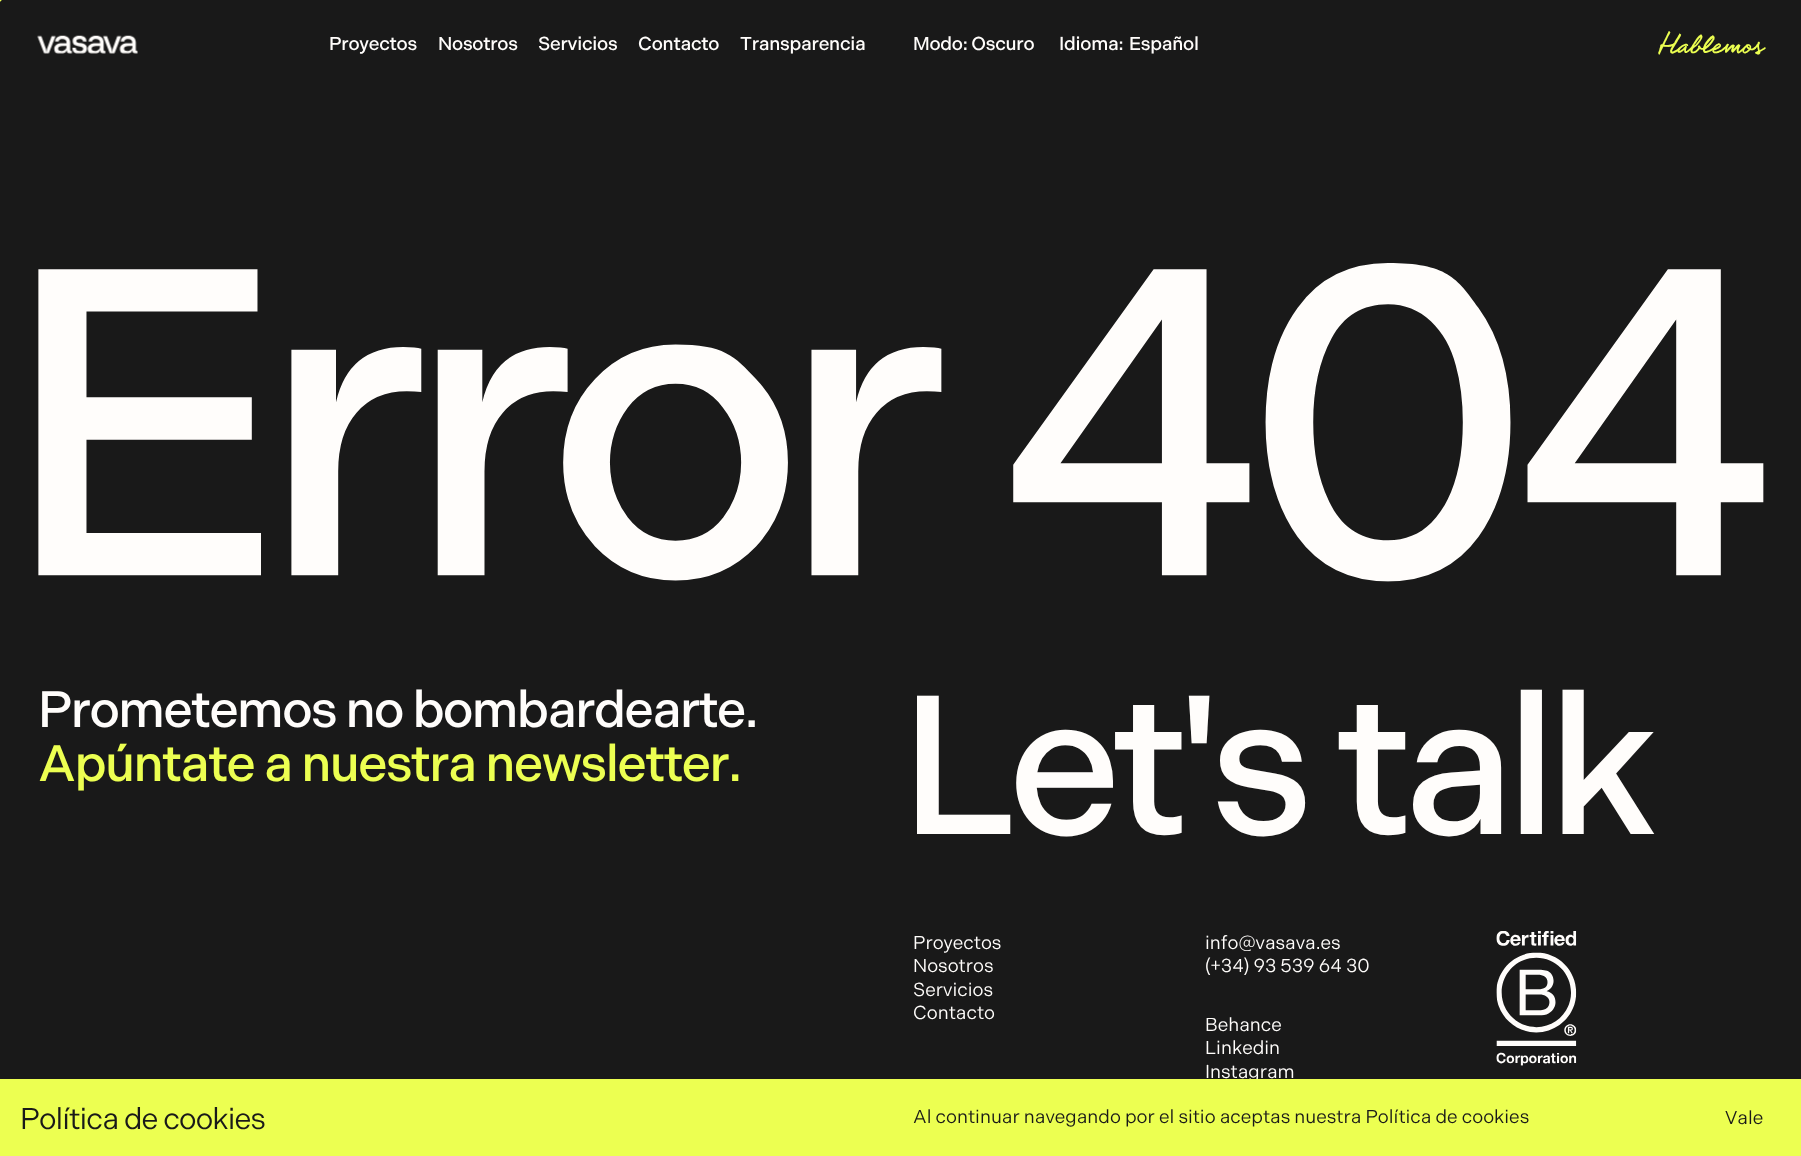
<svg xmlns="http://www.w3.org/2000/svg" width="1801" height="1156">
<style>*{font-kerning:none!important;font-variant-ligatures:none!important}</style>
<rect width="100%" height="100%" fill="#191919"/>
<image x="0" y="0" width="2" height="2" href="media/1.png"/>
<image x="37" y="35" width="101" height="19" href="media/2.png"/>
<text x="329" y="50" style="font-family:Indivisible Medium;font-size:18.75px;font-weight:500;letter-spacing:-0.25px;fill:#fffdfb">Proyectos</text>
<text x="438" y="50" style="font-family:Indivisible Medium;font-size:18.75px;font-weight:500;letter-spacing:-0.25px;fill:#fffdfb">Nosotros</text>
<text x="538" y="50" style="font-family:Indivisible Medium;font-size:18.75px;font-weight:500;letter-spacing:-0.25px;fill:#fffdfb">Servicios</text>
<text x="638" y="50" style="font-family:Indivisible Medium;font-size:18.75px;font-weight:500;letter-spacing:-0.25px;fill:#fffdfb">Contacto</text>
<text x="740" y="50" style="font-family:Indivisible Medium;font-size:18.75px;font-weight:500;letter-spacing:-0.25px;fill:#fffdfb">Transparencia</text>
<text x="913" y="50" style="font-family:Indivisible Medium;font-size:18.75px;font-weight:500;letter-spacing:-0.25px;fill:#fffdfb">Modo: Oscuro</text>
<text x="1059" y="50" style="font-family:Indivisible Medium;font-size:18.75px;font-weight:500;letter-spacing:-0.25px;fill:#fffdfb">Idioma:</text>
<text x="1129" y="50" style="font-family:Indivisible Medium;font-size:18.75px;font-weight:500;letter-spacing:-0.25px;fill:#fffdfb">Español</text>
<text x="1658" y="53" style="font-family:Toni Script;font-size:30px;fill:#ecff51">Hablemos</text>
<image x="38" y="263" width="1726" height="319" href="media/3.png"/>
<text x="38" y="727" style="font-family:Indivisible Medium;font-size:51.25px;font-weight:500;letter-spacing:-1.55px;fill:#fffdfb">Prometemos no bombardearte.</text>
<text x="38" y="781" style="font-family:Indivisible Medium;font-size:51.25px;font-weight:500;letter-spacing:-1.55px;fill:#ecff51">Apúntate a nuestra newsletter.</text>
<text x="901" y="834" style="font-family:Indivisible Medium;font-size:197.5px;font-weight:500;letter-spacing:-9.9px;fill:#fffdfb">Let's talk</text>
<text x="913" y="949" style="font-family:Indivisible;font-size:18.75px;fill:#fffdfb">Proyectos</text>
<text x="913" y="972" style="font-family:Indivisible;font-size:18.75px;fill:#fffdfb">Nosotros</text>
<text x="913" y="996" style="font-family:Indivisible;font-size:18.75px;fill:#fffdfb">Servicios</text>
<text x="913" y="1019" style="font-family:Indivisible;font-size:18.75px;fill:#fffdfb">Contacto</text>
<text x="1205" y="949" style="font-family:Indivisible;font-size:18.75px;fill:#fffdfb">info@vasava.es</text>
<text x="1205" y="972" style="font-family:Indivisible;font-size:18.75px;fill:#fffdfb">(+34) 93 539 64 30</text>
<text x="1205" y="1031" style="font-family:Indivisible;font-size:18.75px;fill:#fffdfb">Behance</text>
<text x="1205" y="1054" style="font-family:Indivisible;font-size:18.75px;fill:#fffdfb">Linkedin</text>
<text x="1205" y="1078" style="font-family:Indivisible;font-size:18.75px;fill:#fffdfb">Instagram</text>
<image x="1496" y="931" width="81" height="135" href="media/4.png"/>
<rect y="1079" width="1801" height="77" fill="#ecff51"/>
<text x="20" y="1129" style="font-family:Indivisible;font-size:30px;letter-spacing:-0.9px;fill:#191919">Política de cookies</text>
<text x="913" y="1123" style="font-family:Indivisible;font-size:18.75px;fill:#191919">Al continuar navegando por el sitio aceptas nuestra Política de cookies</text>
<text x="1725" y="1124" style="font-family:Indivisible;font-size:18.75px;fill:#191919">Vale</text>
</svg>
